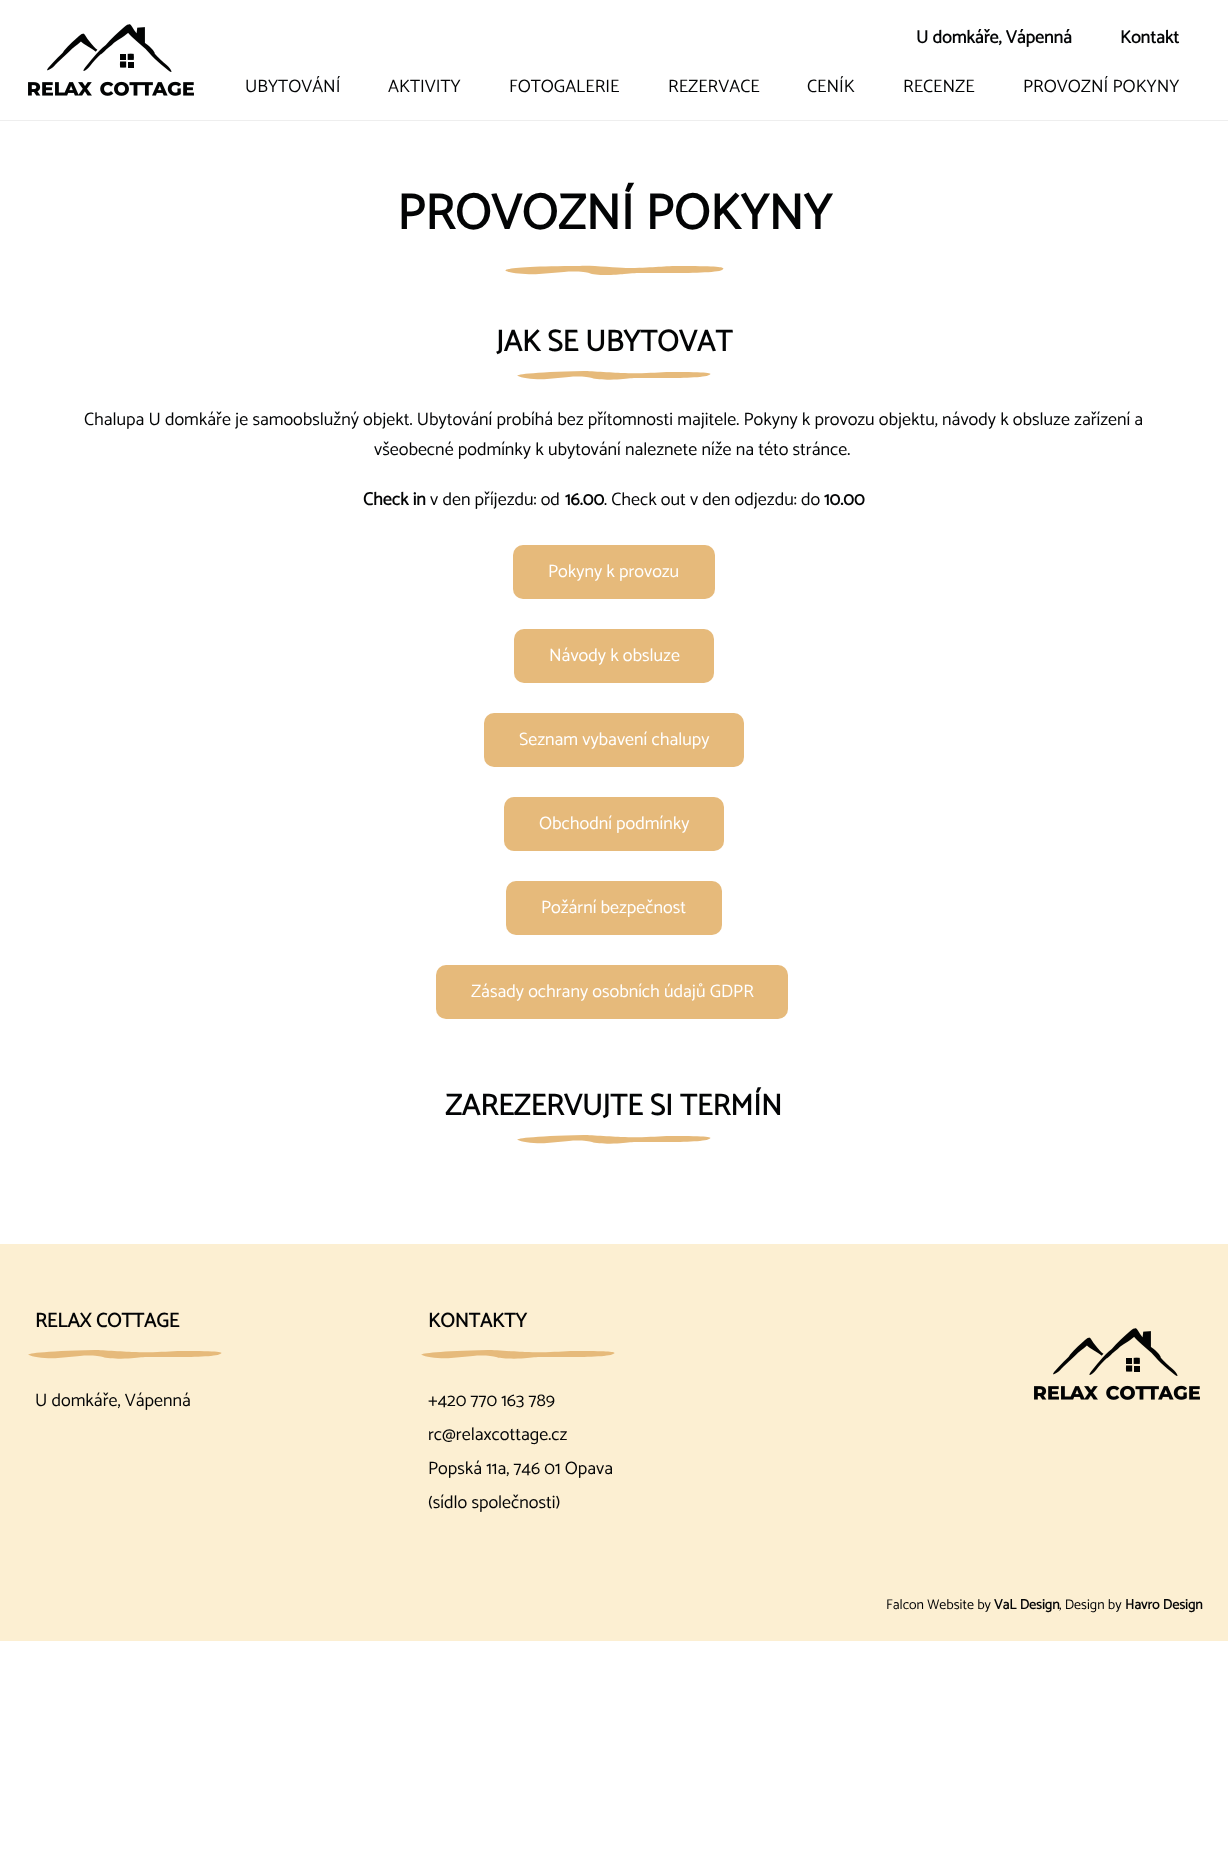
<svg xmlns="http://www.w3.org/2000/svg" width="1228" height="1855">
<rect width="100%" height="100%" fill="#fff"/>
<rect y="120" width="1228" height="1" fill="#eee"/>
<image x="28" y="24" width="166" height="72" href="media/1.png"/>
<text x="916" y="43" style="font-family:Catamaran;font-size:18px;font-weight:bold;fill:#030405">U domkáře, Vápenná</text>
<text x="1120" y="43" style="font-family:Catamaran;font-size:18px;font-weight:bold;fill:#030405">Kontakt</text>
<text x="245" y="92" style="font-family:Catamaran;font-size:18px;font-weight:100;fill:#030405">UBYTOVÁNÍ</text>
<text x="388" y="92" style="font-family:Catamaran;font-size:18px;font-weight:100;fill:#030405">AKTIVITY</text>
<text x="509" y="92" style="font-family:Catamaran;font-size:18px;font-weight:100;fill:#030405">FOTOGALERIE</text>
<text x="668" y="92" style="font-family:Catamaran;font-size:18px;font-weight:100;fill:#030405">REZERVACE</text>
<text x="807" y="92" style="font-family:Catamaran;font-size:18px;font-weight:100;fill:#030405">CENÍK</text>
<text x="903" y="92" style="font-family:Catamaran;font-size:18px;font-weight:100;fill:#030405">RECENZE</text>
<text x="1023" y="92" style="font-family:Catamaran;font-size:18px;font-weight:100;fill:#030405">PROVOZNÍ POKYNY</text>
<path d="M580 266c9-1 36 2 46 2c26 0 36-2 52-2c42 0 49 1 44 4c-7 4-68 3-75 3c-12 0-14 0-23 1c-8 1-29 2-35-1c-2-1-15-2-25-1l-25 2c-11 1-29-1-33-3c-4-2 14-5 74-5z" fill="#e6ba7b"/>
<text x="397" y="229" style="font-family:Catamaran;font-size:50px;font-weight:bold;fill:#030405">PROVOZNÍ POKYNY</text>
<path d="M584 371c7 0 31 2 41 2c22 1 31-1 46-1c37 0 43 1 38 3c-6 4-59 3-66 3c-11 0-12 0-20 1c-7 1-26 1-31-1c-3-1-14-2-23-1l-22 2c-10 1-26-1-29-3c-4-1 12-4 66-5z" fill="#e6ba7b"/>
<text x="496" y="351" style="font-family:Catamaran;font-size:30px;font-weight:bold;fill:#030405">JAK SE UBYTOVAT</text>
<text x="84" y="425" style="font-family:Catamaran;font-size:18px;font-weight:100;fill:#030405">Chalupa U domkáře je samoobslužný objekt. Ubytování probíhá bez přítomnosti majitele. Pokyny k provozu objektu, návody k obsluze zařízení a</text>
<text x="374" y="455" style="font-family:Catamaran;font-size:18px;font-weight:100;fill:#030405">všeobecné podmínky k ubytování naleznete níže na této stránce.</text>
<text x="363" y="505" style="font-family:Catamaran;font-size:18px;font-weight:bold;fill:#030405">Check in</text>
<text x="430" y="505" style="font-family:Catamaran;font-size:18px;font-weight:100;fill:#030405">v den příjezdu: od</text>
<text x="565" y="505" style="font-family:Catamaran;font-size:18px;font-weight:bold;fill:#030405">16.00</text>
<text x="604" y="505" style="font-family:Catamaran;font-size:18px;font-weight:100;fill:#030405">. Check out v den odjezdu: do</text>
<text x="824" y="505" style="font-family:Catamaran;font-size:18px;font-weight:bold;fill:#030405">10.00</text>
<rect x="513" y="545" width="202" height="54" rx="10" fill="#e6ba7b"/>
<text x="548" y="577" style="font-family:Catamaran;font-size:18px;font-weight:100;fill:#fff">Pokyny k provozu</text>
<rect x="514" y="629" width="200" height="54" rx="10" fill="#e6ba7b"/>
<text x="549" y="661" style="font-family:Catamaran;font-size:18px;font-weight:100;fill:#fff">Návody k obsluze</text>
<rect x="484" y="713" width="260" height="54" rx="10" fill="#e6ba7b"/>
<text x="519" y="745" style="font-family:Catamaran;font-size:18px;font-weight:100;fill:#fff">Seznam vybavení chalupy</text>
<rect x="504" y="797" width="220" height="54" rx="10" fill="#e6ba7b"/>
<text x="539" y="829" style="font-family:Catamaran;font-size:18px;font-weight:100;fill:#fff">Obchodní podmínky</text>
<rect x="506" y="881" width="216" height="54" rx="10" fill="#e6ba7b"/>
<text x="541" y="913" style="font-family:Catamaran;font-size:18px;font-weight:100;fill:#fff">Požární bezpečnost</text>
<rect x="436" y="965" width="352" height="54" rx="10" fill="#e6ba7b"/>
<text x="471" y="997" style="font-family:Catamaran;font-size:18px;font-weight:100;fill:#fff">Zásady ochrany osobních údajů GDPR</text>
<path d="M584 1135c7 0 31 2 41 2c22 1 31-1 46-1c37 0 43 1 38 3c-6 4-59 3-66 3c-11 0-12 0-20 1c-7 1-26 1-31-1c-3-1-14-2-23-1l-22 2c-10 1-26-1-29-3c-4-1 12-4 66-5z" fill="#e6ba7b"/>
<text x="445" y="1115" style="font-family:Catamaran;font-size:30px;font-weight:bold;fill:#030405">ZAREZERVUJTE SI TERMÍN</text>
<rect y="1244" width="1228" height="397" fill="#fcefd2"/>
<path d="M95 1350c7 0 31 2 41 2c22 1 31-1 46-1c37 0 43 1 38 3c-6 4-59 3-66 3c-11 0-12 0-20 1c-7 1-26 1-31-1c-3-1-14-2-23-1l-22 2c-10 1-26-1-29-3c-4-1 12-4 66-5z" fill="#e6ba7b"/>
<text x="35" y="1327" style="font-family:Catamaran;font-size:20px;font-weight:bold;fill:#030405">RELAX COTTAGE</text>
<text x="35" y="1406" style="font-family:Catamaran;font-size:18px;font-weight:100;fill:#030405">U domkáře, Vápenná</text>
<path d="M488 1350c7 0 31 2 41 2c22 1 31-1 46-1c37 0 43 1 38 3c-6 4-59 3-66 3c-11 0-12 0-20 1c-7 1-26 1-31-1c-3-1-14-2-23-1l-22 2c-10 1-26-1-29-3c-4-1 12-4 66-5z" fill="#e6ba7b"/>
<text x="428" y="1327" style="font-family:Catamaran;font-size:20px;font-weight:bold;fill:#030405">KONTAKTY</text>
<text x="428" y="1406" style="font-family:Catamaran;font-size:18px;font-weight:100;fill:#030405">+420 770 163 789</text>
<text x="428" y="1440" style="font-family:Catamaran;font-size:18px;font-weight:100;fill:#030405">rc@relaxcottage.cz</text>
<text x="428" y="1474" style="font-family:Catamaran;font-size:18px;font-weight:100;fill:#030405">Popská 11a, 746 01 Opava</text>
<text x="428" y="1508" style="font-family:Catamaran;font-size:18px;font-weight:100;fill:#030405">(sídlo společnosti)</text>
<image x="1034" y="1328" width="166" height="72" href="media/2.png"/>
<text x="886" y="1609" style="font-family:Catamaran;font-size:14px;font-weight:100;fill:#030405">Falcon Website by</text>
<text x="994" y="1609" style="font-family:Catamaran;font-size:14px;font-weight:bold;fill:#030405">VaL Design</text>
<text x="1059" y="1609" style="font-family:Catamaran;font-size:14px;font-weight:100;fill:#030405">, Design by</text>
<text x="1125" y="1609" style="font-family:Catamaran;font-size:14px;font-weight:bold;fill:#030405">Havro Design</text>
</svg>
